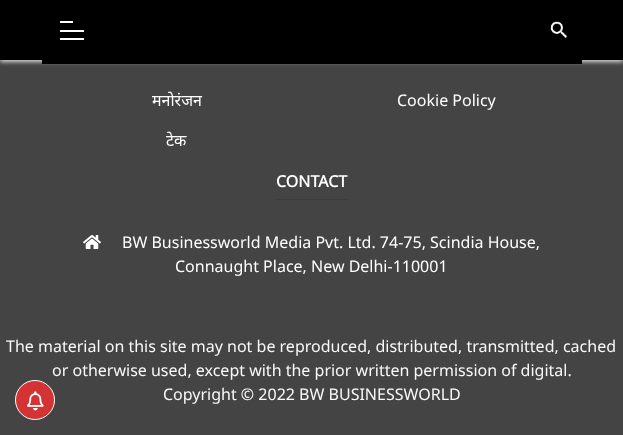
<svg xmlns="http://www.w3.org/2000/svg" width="623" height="435">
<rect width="100%" height="100%" fill="#444"/>
<rect y="2" width="623" height="60" fill="#d6d6d6" filter="blur(2px)"/>
<rect width="623" height="60" fill="#000"/>
<rect x="60" y="21" width="13" height="2" fill="#fff"/>
<rect x="60" y="30" width="24" height="2" fill="#fff"/>
<rect x="60" y="38" width="24" height="2" fill="#fff"/>
<image x="550" y="21" width="18" height="17" href="media/1.png"/>
<rect x="42" y="60" width="540" height="4" fill="#000"/>
<text x="152" y="106" style="font-family:Noto Sans;font-size:16px;fill:#fff">मनोरंजन</text>
<text x="166" y="146" style="font-family:Noto Sans;font-size:16px;fill:#fff">टेक</text>
<text x="397" y="106" style="font-family:Noto Sans;font-size:16px;fill:#fff">Cookie Policy</text>
<text x="276" y="187" style="font-family:Noto Sans;font-size:16px;font-weight:bold;fill:#fff">CONTACT</text>
<rect x="276" y="199" width="72" height="1" fill="#3d3d3d"/>
<image x="83" y="235" width="18" height="14" href="media/2.png"/>
<text x="122" y="248" style="font-family:Noto Sans;font-size:16px;fill:#fff">BW Businessworld Media Pvt. Ltd. 74-75, Scindia House,</text>
<text x="175" y="272" style="font-family:Noto Sans;font-size:16px;fill:#fff">Connaught Place, New Delhi-110001</text>
<text x="6" y="352" style="font-family:Noto Sans;font-size:16px;fill:#f8f9fa">The material on this site may not be reproduced, distributed, transmitted, cached</text>
<text x="52" y="376" style="font-family:Noto Sans;font-size:16px;fill:#f8f9fa">or otherwise used, except with the prior written permission of digital.</text>
<text x="163" y="400" style="font-family:Noto Sans;font-size:16px;fill:#f8f9fa">Copyright © 2022 BW BUSINESSWORLD</text>
<circle cx="35" cy="400" r="19.5" fill="#d43333" stroke="#fff"/>
<image x="27" y="391" width="17" height="20" href="media/3.png"/>
</svg>
